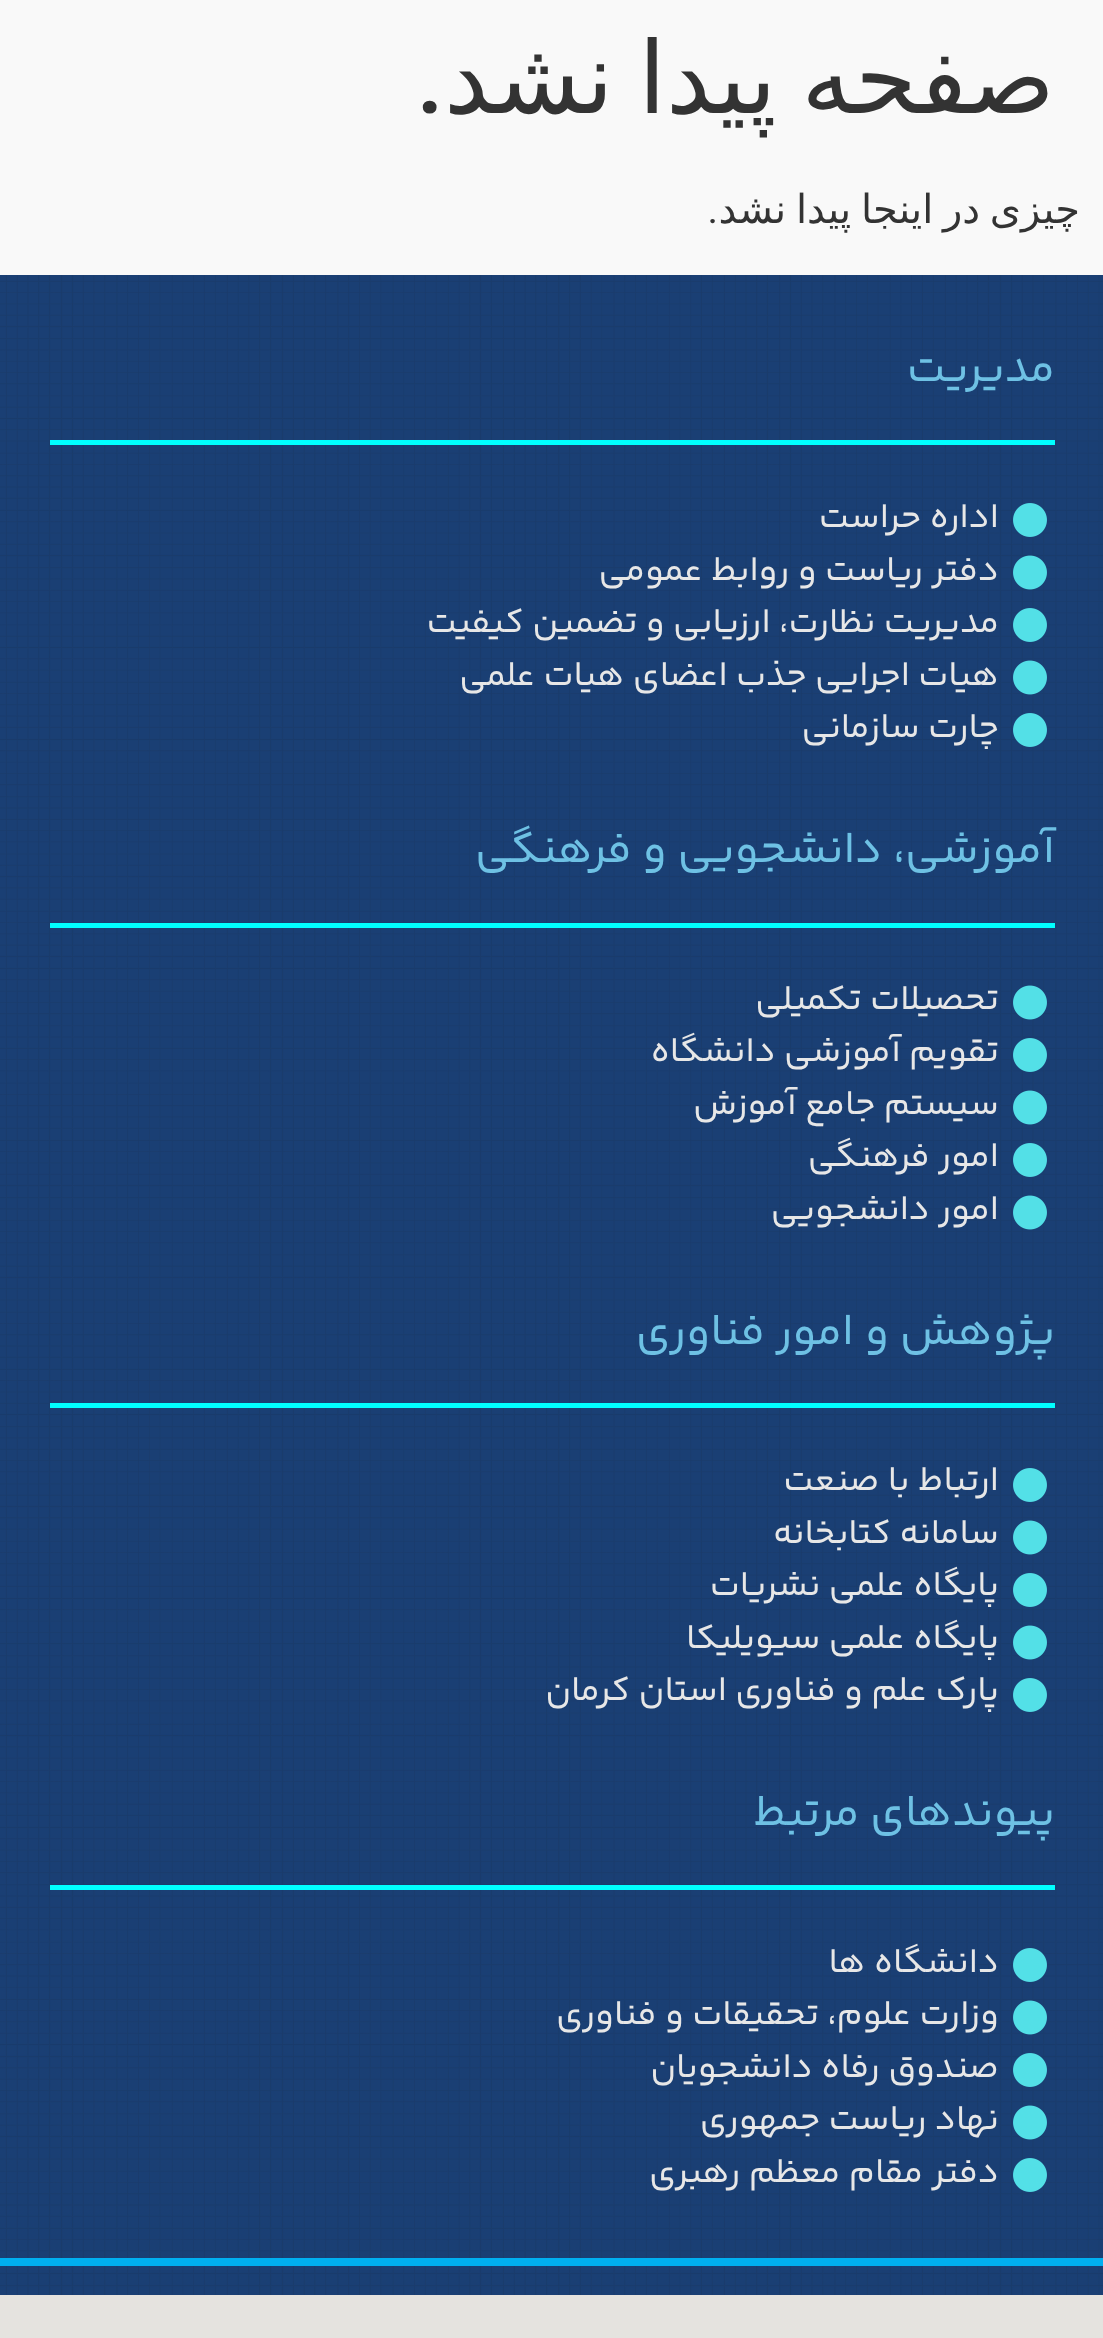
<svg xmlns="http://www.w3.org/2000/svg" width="1103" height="2338">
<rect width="100%" height="100%" fill="#f9f9f9"/>
<text x="1055" y="113" word-spacing="-7" style="font-family:DejaVu Sans;font-size:100px;direction:rtl;fill:#333">صفحه پیدا نشد</text>
<text x="444" y="113" style="font-family:Roboto;font-size:100px;font-weight:500;direction:rtl;fill:#333">.</text>
<text x="1080" y="223" word-spacing="-3" style="font-family:DejaVu Sans;font-size:40px;direction:rtl;fill:#333">چیزی در اینجا پیدا نشد</text>
<text x="718" y="223" style="font-family:Roboto;font-size:40px;direction:rtl;fill:#333">.</text>
<rect y="275" width="1103" height="2020" fill="#1a3f74"/>
<image x="0" y="275" width="1103" height="2020" href="media/1.png"/>
<rect x="50" y="440" width="1005" height="5" fill="#0ff"/>
<text x="1055" y="381" style="font-family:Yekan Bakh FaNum;font-size:45px;direction:rtl;fill:#6ec1e4">مدیریت</text>
<image x="1013" y="503" width="34" height="34" href="media/2.png"/>
<text x="999" y="527" style="font-family:Yekan Bakh FaNum;font-size:35px;direction:rtl;fill:#e7e7e7">اداره حراست</text>
<image x="1013" y="555" width="34" height="35" href="media/3.png"/>
<text x="999" y="580" style="font-family:Yekan Bakh FaNum;font-size:35px;direction:rtl;fill:#e7e7e7">دفتر ریاست و روابط عمومی</text>
<image x="1013" y="608" width="34" height="34" href="media/4.png"/>
<text x="999" y="632" style="font-family:Yekan Bakh FaNum;font-size:35px;direction:rtl;fill:#e7e7e7">مدیریت نظارت، ارزیابی و تضمین کیفیت</text>
<image x="1013" y="660" width="34" height="35" href="media/5.png"/>
<text x="999" y="685" style="font-family:Yekan Bakh FaNum;font-size:35px;direction:rtl;fill:#e7e7e7">هیات اجرایی جذب اعضای هیات علمی</text>
<image x="1013" y="713" width="34" height="34" href="media/6.png"/>
<text x="999" y="737" style="font-family:Yekan Bakh FaNum;font-size:35px;direction:rtl;fill:#e7e7e7">چارت سازمانی</text>
<rect x="50" y="923" width="1005" height="5" fill="#0ff"/>
<text x="1055" y="862" style="font-family:Yekan Bakh FaNum;font-size:45px;direction:rtl;fill:#6ec1e4">آموزشی، دانشجویی و فرهنگی</text>
<image x="1013" y="985" width="34" height="35" href="media/7.png"/>
<text x="999" y="1009" style="font-family:Yekan Bakh FaNum;font-size:35px;direction:rtl;fill:#e7e7e7">تحصیلات تکمیلی</text>
<image x="1013" y="1038" width="34" height="34" href="media/8.png"/>
<text x="999" y="1061" style="font-family:Yekan Bakh FaNum;font-size:35px;direction:rtl;fill:#e7e7e7">تقویم آموزشی دانشگاه</text>
<image x="1013" y="1090" width="34" height="35" href="media/9.png"/>
<text x="999" y="1114" style="font-family:Yekan Bakh FaNum;font-size:35px;direction:rtl;fill:#e7e7e7">سیستم جامع آموزش</text>
<image x="1013" y="1143" width="34" height="34" href="media/10.png"/>
<text x="999" y="1166" style="font-family:Yekan Bakh FaNum;font-size:35px;direction:rtl;fill:#e7e7e7">امور فرهنگی</text>
<image x="1013" y="1195" width="34" height="35" href="media/11.png"/>
<text x="999" y="1219" style="font-family:Yekan Bakh FaNum;font-size:35px;direction:rtl;fill:#e7e7e7">امور دانشجویی</text>
<rect x="50" y="1403" width="1005" height="5" fill="#0ff"/>
<text x="1055" y="1344" style="font-family:Yekan Bakh FaNum;font-size:45px;direction:rtl;fill:#6ec1e4">پژوهش و امور فناوری</text>
<image x="1013" y="1468" width="34" height="34" href="media/12.png"/>
<text x="999" y="1490" style="font-family:Yekan Bakh FaNum;font-size:35px;direction:rtl;fill:#e7e7e7">ارتباط با صنعت</text>
<image x="1013" y="1520" width="34" height="35" href="media/13.png"/>
<text x="999" y="1543" style="font-family:Yekan Bakh FaNum;font-size:35px;direction:rtl;fill:#e7e7e7">سامانه کتابخانه</text>
<image x="1013" y="1573" width="34" height="34" href="media/14.png"/>
<text x="999" y="1595" style="font-family:Yekan Bakh FaNum;font-size:35px;direction:rtl;fill:#e7e7e7">پایگاه علمی نشریات</text>
<image x="1013" y="1625" width="34" height="35" href="media/15.png"/>
<text x="999" y="1648" style="font-family:Yekan Bakh FaNum;font-size:35px;direction:rtl;fill:#e7e7e7">پایگاه علمی سیویلیکا</text>
<image x="1013" y="1678" width="34" height="34" href="media/16.png"/>
<text x="999" y="1700" style="font-family:Yekan Bakh FaNum;font-size:35px;direction:rtl;fill:#e7e7e7">پارک علم و فناوری استان کرمان</text>
<rect x="50" y="1885" width="1005" height="5" fill="#0ff"/>
<text x="1055" y="1825" style="font-family:Yekan Bakh FaNum;font-size:45px;direction:rtl;fill:#6ec1e4">پیوندهای مرتبط</text>
<image x="1013" y="1948" width="34" height="34" href="media/17.png"/>
<text x="999" y="1972" style="font-family:Yekan Bakh FaNum;font-size:35px;direction:rtl;fill:#e7e7e7">دانشگاه ها</text>
<image x="1013" y="2000" width="34" height="35" href="media/18.png"/>
<text x="999" y="2024" style="font-family:Yekan Bakh FaNum;font-size:35px;direction:rtl;fill:#e7e7e7">وزارت علوم، تحقیقات و فناوری</text>
<image x="1013" y="2053" width="34" height="34" href="media/19.png"/>
<text x="999" y="2077" style="font-family:Yekan Bakh FaNum;font-size:35px;direction:rtl;fill:#e7e7e7">صندوق رفاه دانشجویان</text>
<image x="1013" y="2105" width="34" height="35" href="media/20.png"/>
<text x="999" y="2129" style="font-family:Yekan Bakh FaNum;font-size:35px;direction:rtl;fill:#e7e7e7">نهاد ریاست جمهوری</text>
<image x="1013" y="2158" width="34" height="34" href="media/21.png"/>
<text x="999" y="2182" style="font-family:Yekan Bakh FaNum;font-size:35px;direction:rtl;fill:#e7e7e7">دفتر مقام معظم رهبری</text>
<rect y="2258" width="1103" height="8" fill="#00aff0"/>
<rect y="2295" width="1103" height="43" fill="#e5e3df"/>
</svg>
